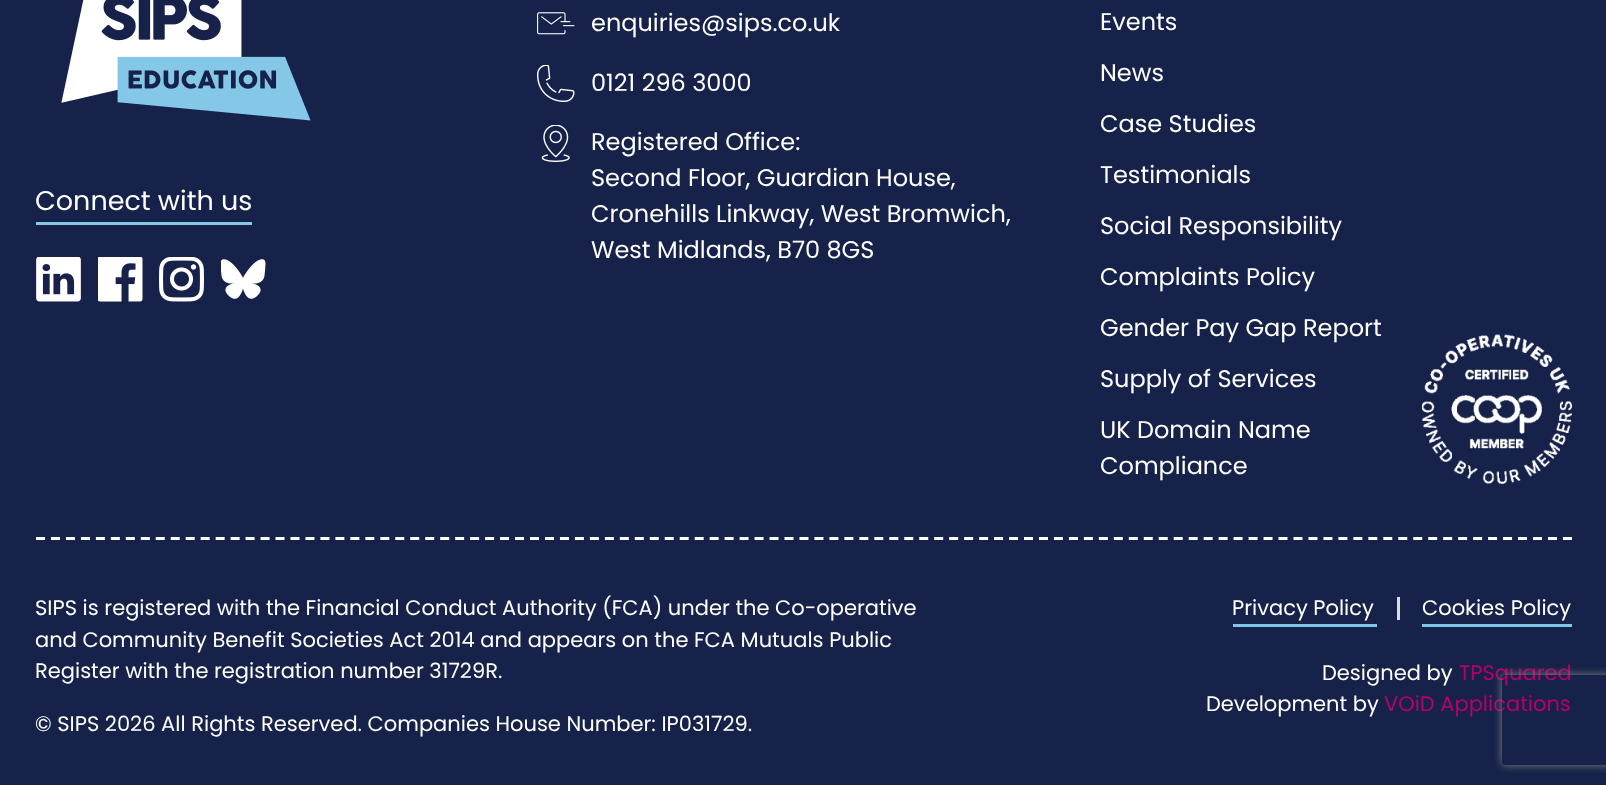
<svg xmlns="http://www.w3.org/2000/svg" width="1606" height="785">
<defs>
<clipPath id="clip1"><path d="M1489 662h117v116h-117zm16 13h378c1.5 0 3 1.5 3 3v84c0 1.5-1.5 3-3 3h-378c-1.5 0-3-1.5-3-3v-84c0-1.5 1.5-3 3-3z" clip-rule="evenodd"/></clipPath>
</defs>
<rect width="100%" height="100%" fill="#162249"/>
<image x="61" y="0" width="250" height="121" href="media/1.png"/>
<rect x="36" y="222" width="216" height="3" fill="#86c7e5"/>
<text x="35" y="210" style="font-family:Poppins;font-size:27px;fill:#fff">Connect with us</text>
<image x="36" y="257" width="45" height="45" href="media/2.png"/>
<image x="98" y="257" width="45" height="45" href="media/3.png"/>
<image x="159" y="257" width="45" height="45" href="media/4.png"/>
<image x="221" y="259" width="45" height="40" href="media/5.png"/>
<image x="537" y="12" width="38" height="23" href="media/6.png"/>
<text x="591" y="31" style="font-family:Poppins;font-size:24px;fill:#fff">enquiries@sips.co.uk</text>
<image x="537" y="65" width="38" height="37" href="media/7.png"/>
<text x="591" y="91" style="font-family:Poppins;font-size:24px;fill:#fff">0121 296 3000</text>
<image x="541" y="125" width="29" height="37" href="media/8.png"/>
<text x="591" y="150" style="font-family:Poppins;font-size:24px;fill:#fff">Registered Office:</text>
<text x="591" y="186" style="font-family:Poppins;font-size:24px;fill:#fff">Second Floor, Guardian House,</text>
<text x="591" y="222" style="font-family:Poppins;font-size:24px;fill:#fff">Cronehills Linkway, West Bromwich,</text>
<text x="591" y="258" style="font-family:Poppins;font-size:24px;fill:#fff">West Midlands, B70 8GS</text>
<text x="1100" y="30" style="font-family:Poppins;font-size:24px;fill:#fff">Events</text>
<text x="1100" y="81" style="font-family:Poppins;font-size:24px;fill:#fff">News</text>
<text x="1100" y="132" style="font-family:Poppins;font-size:24px;fill:#fff">Case Studies</text>
<text x="1100" y="183" style="font-family:Poppins;font-size:24px;fill:#fff">Testimonials</text>
<text x="1100" y="234" style="font-family:Poppins;font-size:24px;fill:#fff">Social Responsibility</text>
<text x="1100" y="285" style="font-family:Poppins;font-size:24px;fill:#fff">Complaints Policy</text>
<text x="1100" y="336" style="font-family:Poppins;font-size:24px;fill:#fff">Gender Pay Gap Report</text>
<text x="1100" y="387" style="font-family:Poppins;font-size:24px;fill:#fff">Supply of Services</text>
<text x="1100" y="438" style="font-family:Poppins;font-size:24px;fill:#fff">UK Domain Name</text>
<text x="1100" y="474" style="font-family:Poppins;font-size:24px;fill:#fff">Compliance</text>
<image x="1422" y="334" width="150" height="150" href="media/9.png"/>
<path d="M36 538.5h1536" fill="none" stroke="#fff" stroke-width="3" stroke-dasharray="9 5.97"/>
<text x="35" y="615" style="font-family:Poppins;font-size:21px;fill:#fff">SIPS is registered with the Financial Conduct Authority (FCA) under the Co-operative</text>
<text x="35" y="647" style="font-family:Poppins;font-size:21px;fill:#fff">and Community Benefit Societies Act 2014 and appears on the FCA Mutuals Public</text>
<text x="35" y="678" style="font-family:Poppins;font-size:21px;fill:#fff">Register with the registration number 31729R.</text>
<text x="35" y="731" style="font-family:Poppins;font-size:21px;fill:#fff">© SIPS 2026 All Rights Reserved. Companies House Number: IP031729.</text>
<rect x="1233" y="624" width="144" height="3" fill="#80c7e7"/>
<text x="1232" y="615" style="font-family:Poppins;font-size:21px;fill:#fff">Privacy Policy</text>
<rect x="1397" y="597" width="3" height="23" fill="#ddd"/>
<rect x="1422" y="624" width="150" height="3" fill="#80c7e7"/>
<text x="1422" y="615" style="font-family:Poppins;font-size:21px;fill:#fff">Cookies Policy</text>
<text x="1322" y="680" style="font-family:Poppins;font-size:21px;fill:#fff">Designed by</text>
<text x="1459" y="680" style="font-family:Poppins;font-size:21px;fill:#b8006a">TPSquared</text>
<text x="1206" y="711" style="font-family:Poppins;font-size:21px;fill:#fff">Development by</text>
<text x="1384" y="711" style="font-family:Poppins;font-size:21px;fill:#b8006a">VOiD Applications</text>
<g clip-path="url(#clip1)">
<rect x="1502" y="675" width="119" height="90" rx="3" fill="#808080" filter="blur(4px)"/>
</g>
</svg>
